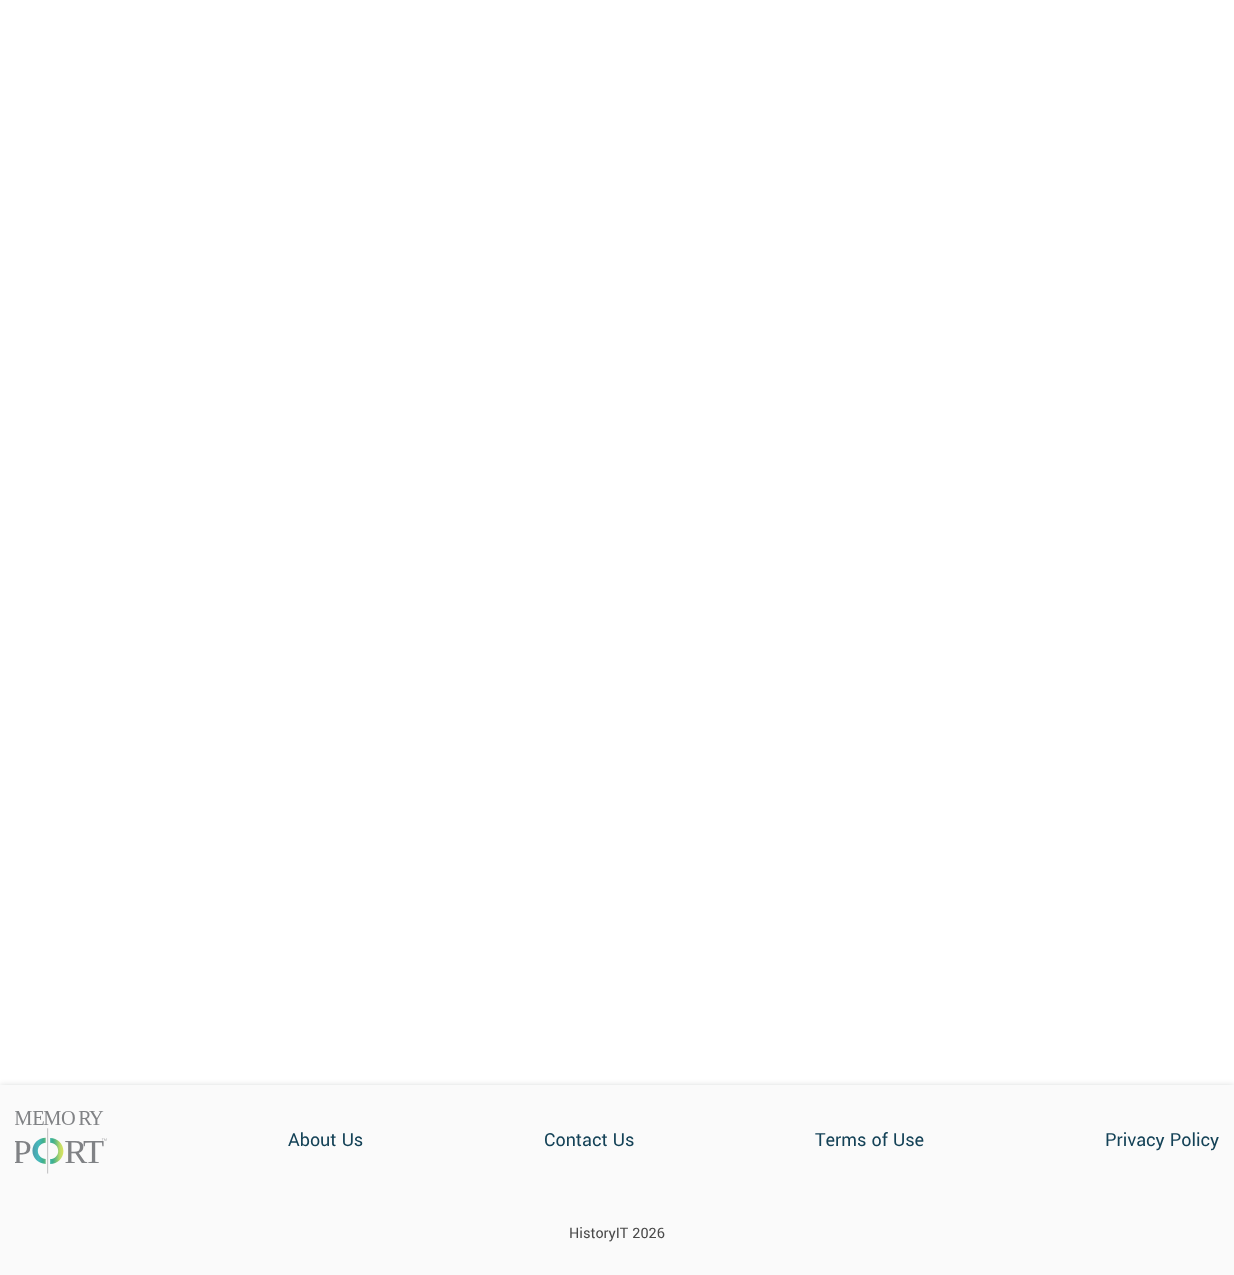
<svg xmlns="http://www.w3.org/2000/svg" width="1234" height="1275">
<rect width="100%" height="100%" fill="#fff"/>
<rect y="1086" width="1234" height="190" fill="#00101133" filter="blur(3px)"/>
<rect y="1085" width="1234" height="190" fill="#fafafa"/>
<image x="15" y="1111" width="92" height="63" href="media/1.png"/>
<text x="288" y="1146" style="font-family:Yantramanav;font-size:20px;fill:#144257">About Us</text>
<text x="544" y="1146" style="font-family:Yantramanav;font-size:20px;fill:#144257">Contact Us</text>
<text x="815" y="1146" style="font-family:Yantramanav;font-size:20px;fill:#144257">Terms of Use</text>
<text x="1105" y="1146" style="font-family:Yantramanav;font-size:20px;fill:#144257">Privacy Policy</text>
<text x="569" y="1238" style="font-family:Yantramanav;font-size:16px;fill:#4a4a4a">HistoryIT 2026</text>
</svg>
